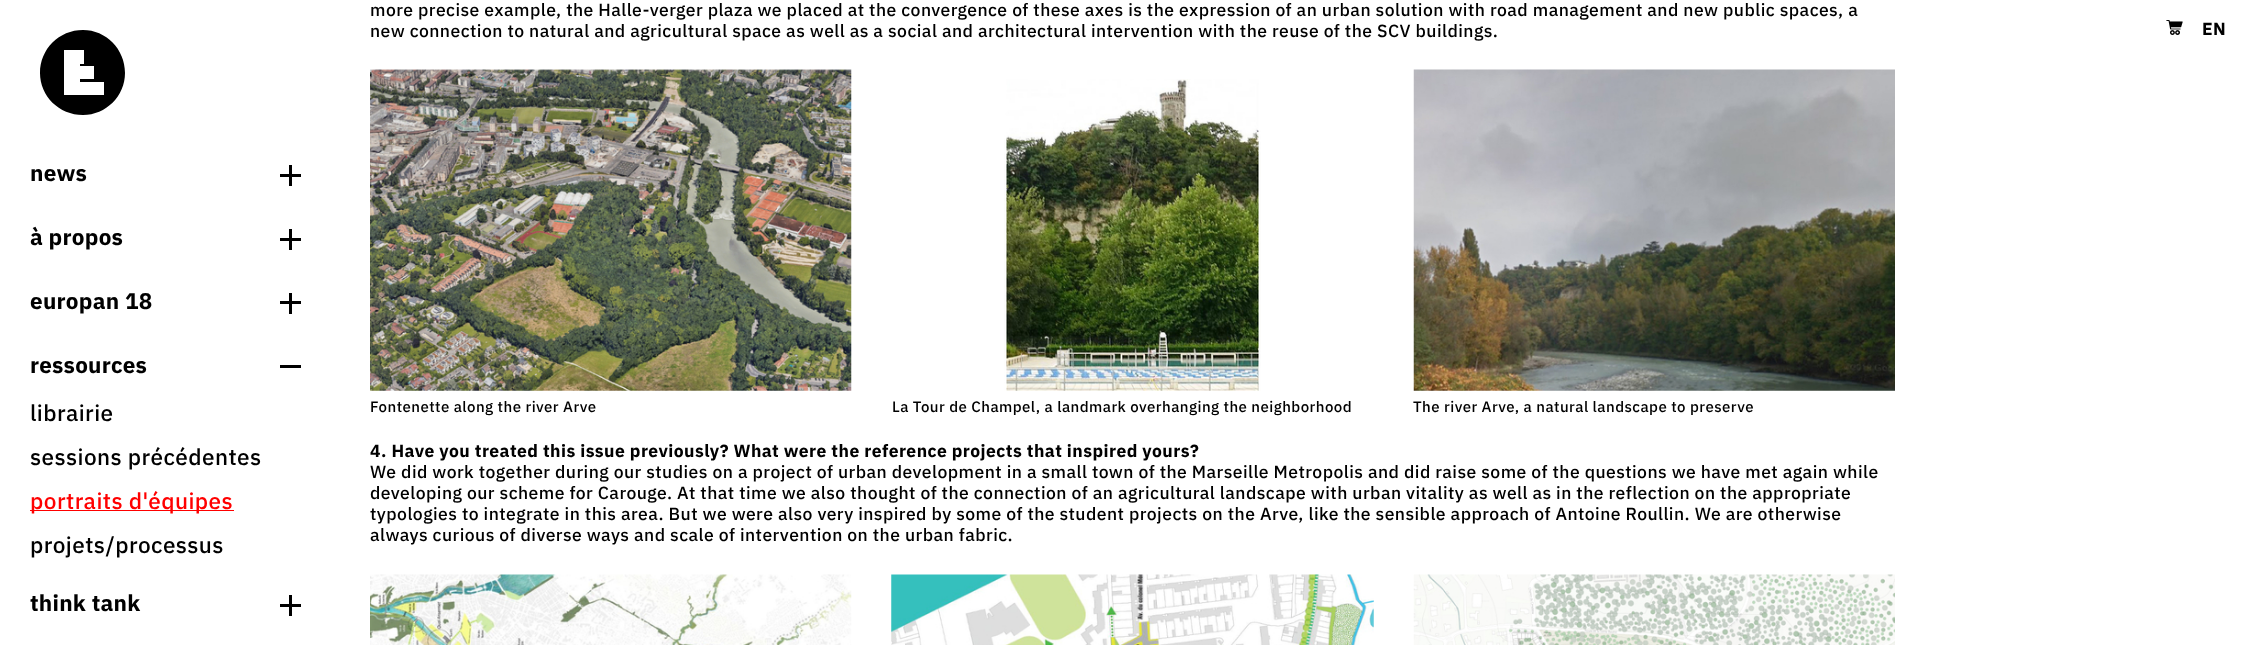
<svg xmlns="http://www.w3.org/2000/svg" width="2256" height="645">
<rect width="100%" height="100%" fill="#fff"/>
<text x="370" y="16" style="font-family:IBM Plex Sans;font-size:17.5px;font-weight:500;letter-spacing:0.45px;fill:#000">more precise example, the Halle-verger plaza we placed at the convergence of these axes is the expression of an urban solution with road management and new public spaces, a</text>
<text x="370" y="37" style="font-family:IBM Plex Sans;font-size:17.5px;font-weight:500;letter-spacing:0.45px;fill:#000">new connection to natural and agricultural space as well as a social and architectural intervention with the reuse of the SCV buildings.</text>
<image x="370" y="69" width="482" height="322" href="media/1.png"/>
<text x="370" y="412" style="font-family:IBM Plex Sans;font-size:15px;font-weight:500;letter-spacing:0.45px;fill:#000">Fontenette along the river Arve</text>
<image x="1004" y="79" width="257" height="312" href="media/2.png"/>
<text x="892" y="412" style="font-family:IBM Plex Sans;font-size:15px;font-weight:500;letter-spacing:0.45px;fill:#000">La Tour de Champel, a landmark overhanging the neighborhood</text>
<image x="1413" y="69" width="482" height="322" href="media/3.png"/>
<text x="1413" y="412" style="font-family:IBM Plex Sans;font-size:15px;font-weight:500;letter-spacing:0.45px;fill:#000">The river Arve, a natural landscape to preserve</text>
<text x="370" y="457" style="font-family:IBM Plex Sans;font-size:17.5px;font-weight:bold;letter-spacing:0.45px;fill:#000">4. Have you treated this issue previously? What were the reference projects that inspired yours?</text>
<text x="370" y="478" style="font-family:IBM Plex Sans;font-size:17.5px;font-weight:500;letter-spacing:0.45px;fill:#000">We did work together during our studies on a project of urban development in a small town of the Marseille Metropolis and did raise some of the questions we have met again while</text>
<text x="370" y="499" style="font-family:IBM Plex Sans;font-size:17.5px;font-weight:500;letter-spacing:0.45px;fill:#000">developing our scheme for Carouge. At that time we also thought of the connection of an agricultural landscape with urban vitality as well as in the reflection on the appropriate</text>
<text x="370" y="520" style="font-family:IBM Plex Sans;font-size:17.5px;font-weight:500;letter-spacing:0.45px;fill:#000">typologies to integrate in this area. But we were also very inspired by some of the student projects on the Arve, like the sensible approach of Antoine Roullin. We are otherwise</text>
<text x="370" y="541" style="font-family:IBM Plex Sans;font-size:17.5px;font-weight:500;letter-spacing:0.45px;fill:#000">always curious of diverse ways and scale of intervention on the urban fabric.</text>
<image x="370" y="574" width="482" height="71" href="media/4.png"/>
<image x="891" y="574" width="483" height="71" href="media/5.png"/>
<image x="1413" y="574" width="482" height="71" href="media/6.png"/>
<image x="2166" y="20" width="17" height="15" href="media/7.png"/>
<text x="2202" y="35" style="font-family:IBM Plex Sans;font-size:17.5px;font-weight:bold;letter-spacing:0.45px;fill:#000">EN</text>
<path d="M83 30c-24 0-43 19-43 43c0 23 19 42 43 42c23 0 42-19 42-42c0-24-19-43-42-43zm21 65h-40v-45h20v14h-4v2h14v13h-14v3h24z" fill="#000"/>
<text x="30" y="181" style="font-family:IBM Plex Sans;font-size:22.5px;font-weight:bold;letter-spacing:0.25px;fill:#000">news</text>
<rect x="280" y="174" width="21" height="3" fill="#000"/>
<rect x="289" y="165" width="3" height="21" fill="#000"/>
<text x="30" y="245" style="font-family:IBM Plex Sans;font-size:22.5px;font-weight:bold;letter-spacing:0.25px;fill:#000">à propos</text>
<rect x="280" y="238" width="21" height="3" fill="#000"/>
<rect x="289" y="229" width="3" height="21" fill="#000"/>
<text x="30" y="309" style="font-family:IBM Plex Sans;font-size:22.5px;font-weight:bold;letter-spacing:0.25px;fill:#000">europan 18</text>
<rect x="280" y="301" width="21" height="3" fill="#000"/>
<rect x="289" y="293" width="3" height="21" fill="#000"/>
<text x="30" y="373" style="font-family:IBM Plex Sans;font-size:22.5px;font-weight:bold;letter-spacing:0.25px;fill:#000">ressources</text>
<rect x="280" y="365" width="21" height="3" fill="#000"/>
<text x="30" y="421" style="font-family:IBM Plex Sans;font-size:22.5px;font-weight:500;letter-spacing:0.45px;fill:#000">librairie</text>
<text x="30" y="465" style="font-family:IBM Plex Sans;font-size:22.5px;font-weight:500;letter-spacing:0.45px;fill:#000">sessions précédentes</text>
<rect x="30" y="510" width="204" height="1" fill="#f00"/>
<text x="30" y="509" style="font-family:IBM Plex Sans;font-size:22.5px;font-weight:500;letter-spacing:0.45px;fill:#f00">portraits d'équipes</text>
<text x="30" y="553" style="font-family:IBM Plex Sans;font-size:22.5px;font-weight:500;letter-spacing:0.45px;fill:#000">projets/processus</text>
<text x="30" y="611" style="font-family:IBM Plex Sans;font-size:22.5px;font-weight:bold;letter-spacing:0.25px;fill:#000">think tank</text>
<rect x="280" y="604" width="21" height="3" fill="#000"/>
<rect x="289" y="595" width="3" height="21" fill="#000"/>
</svg>
